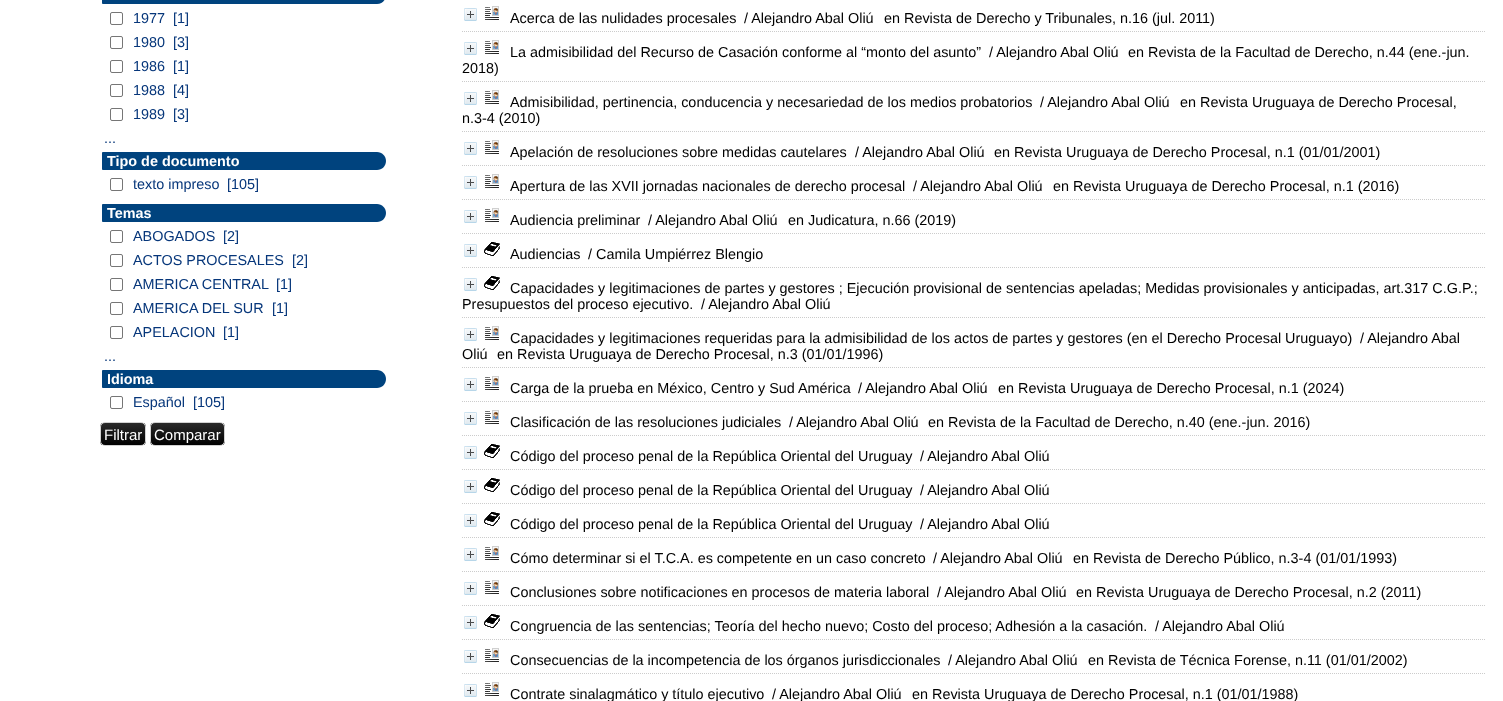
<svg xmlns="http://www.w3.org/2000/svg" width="1503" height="701">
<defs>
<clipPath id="clip1"><rect x="100" y="422" width="46" height="24" rx="5"/></clipPath>
<linearGradient id="g1" gradientUnits="userSpaceOnUse" x1="123" y1="423" x2="123" y2="445"><stop offset="0" stop-color="#2a2a2a"/><stop offset="1" stop-color="#000"/></linearGradient>
<clipPath id="clip2"><rect x="150" y="422" width="75" height="24" rx="5"/></clipPath>
<linearGradient id="g2" gradientUnits="userSpaceOnUse" x1="188" y1="423" x2="188" y2="445"><stop offset="0" stop-color="#2a2a2a"/><stop offset="1" stop-color="#000"/></linearGradient>
</defs>
<rect width="100%" height="100%" fill="#fff"/>
<path d="M103-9h274c5 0 9 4 9 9v-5c0 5-4 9-9 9h-274c-.5 0-1-.5-1-1v-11c0-.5 .5-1 1-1z" fill="#00437e"/>
<rect x="110.5" y="12.5" width="12" height="12" rx="1.5" fill="none" stroke="#767676"/>
<text x="133" y="23" style="font-family:Liberation Sans;font-size:14.4px;fill:#06367a">1977</text>
<text x="173" y="23" style="font-family:Liberation Sans;font-size:14.4px;fill:#06367a">[1]</text>
<rect x="110.5" y="36.5" width="12" height="12" rx="1.5" fill="none" stroke="#767676"/>
<text x="133" y="47" style="font-family:Liberation Sans;font-size:14.4px;fill:#06367a">1980</text>
<text x="173" y="47" style="font-family:Liberation Sans;font-size:14.4px;fill:#06367a">[3]</text>
<rect x="110.5" y="60.5" width="12" height="12" rx="1.5" fill="none" stroke="#767676"/>
<text x="133" y="71" style="font-family:Liberation Sans;font-size:14.4px;fill:#06367a">1986</text>
<text x="173" y="71" style="font-family:Liberation Sans;font-size:14.4px;fill:#06367a">[1]</text>
<rect x="110.5" y="84.5" width="12" height="12" rx="1.5" fill="none" stroke="#767676"/>
<text x="133" y="95" style="font-family:Liberation Sans;font-size:14.4px;fill:#06367a">1988</text>
<text x="173" y="95" style="font-family:Liberation Sans;font-size:14.4px;fill:#06367a">[4]</text>
<rect x="110.5" y="108.5" width="12" height="12" rx="1.5" fill="none" stroke="#767676"/>
<text x="133" y="119" style="font-family:Liberation Sans;font-size:14.4px;fill:#06367a">1989</text>
<text x="173" y="119" style="font-family:Liberation Sans;font-size:14.4px;fill:#06367a">[3]</text>
<text x="104" y="143" style="font-family:Liberation Sans;font-size:14.4px;fill:#06367a">...</text>
<path d="M103 152h274c5 0 9 4 9 9c0 5-4 9-9 9h-274c-.5 0-1-.5-1-1v-16c0-.5 .5-1 1-1z" fill="#00437e"/>
<text x="107" y="166" style="font-family:Liberation Sans;font-size:14.4px;font-weight:bold;fill:#fff">Tipo de documento</text>
<rect x="110.5" y="178.5" width="12" height="12" rx="1.5" fill="none" stroke="#767676"/>
<text x="133" y="189" style="font-family:Liberation Sans;font-size:14.4px;fill:#06367a">texto impreso</text>
<text x="227" y="189" style="font-family:Liberation Sans;font-size:14.4px;fill:#06367a">[105]</text>
<path d="M103 204h274c5 0 9 4 9 9c0 5-4 9-9 9h-274c-.5 0-1-.5-1-1v-16c0-.5 .5-1 1-1z" fill="#00437e"/>
<text x="107" y="218" style="font-family:Liberation Sans;font-size:14.4px;font-weight:bold;fill:#fff">Temas</text>
<rect x="110.5" y="230.5" width="12" height="12" rx="1.5" fill="none" stroke="#767676"/>
<text x="133" y="241" style="font-family:Liberation Sans;font-size:14.4px;fill:#06367a">ABOGADOS</text>
<text x="223" y="241" style="font-family:Liberation Sans;font-size:14.4px;fill:#06367a">[2]</text>
<rect x="110.5" y="254.5" width="12" height="12" rx="1.5" fill="none" stroke="#767676"/>
<text x="133" y="265" style="font-family:Liberation Sans;font-size:14.4px;fill:#06367a">ACTOS PROCESALES</text>
<text x="292" y="265" style="font-family:Liberation Sans;font-size:14.4px;fill:#06367a">[2]</text>
<rect x="110.5" y="278.5" width="12" height="12" rx="1.5" fill="none" stroke="#767676"/>
<text x="133" y="289" style="font-family:Liberation Sans;font-size:14.4px;fill:#06367a">AMERICA CENTRAL</text>
<text x="276" y="289" style="font-family:Liberation Sans;font-size:14.4px;fill:#06367a">[1]</text>
<rect x="110.5" y="302.5" width="12" height="12" rx="1.5" fill="none" stroke="#767676"/>
<text x="133" y="313" style="font-family:Liberation Sans;font-size:14.4px;fill:#06367a">AMERICA DEL SUR</text>
<text x="272" y="313" style="font-family:Liberation Sans;font-size:14.4px;fill:#06367a">[1]</text>
<rect x="110.5" y="326.5" width="12" height="12" rx="1.5" fill="none" stroke="#767676"/>
<text x="133" y="337" style="font-family:Liberation Sans;font-size:14.4px;fill:#06367a">APELACION</text>
<text x="223" y="337" style="font-family:Liberation Sans;font-size:14.4px;fill:#06367a">[1]</text>
<text x="104" y="361" style="font-family:Liberation Sans;font-size:14.4px;fill:#06367a">...</text>
<path d="M103 370h274c5 0 9 4 9 9c0 5-4 9-9 9h-274c-.5 0-1-.5-1-1v-16c0-.5 .5-1 1-1z" fill="#00437e"/>
<text x="107" y="384" style="font-family:Liberation Sans;font-size:14.4px;font-weight:bold;fill:#fff">Idioma</text>
<rect x="110.5" y="396.5" width="12" height="12" rx="1.5" fill="none" stroke="#767676"/>
<text x="133" y="407" style="font-family:Liberation Sans;font-size:14.4px;fill:#06367a">Español</text>
<text x="193" y="407" style="font-family:Liberation Sans;font-size:14.4px;fill:#06367a">[105]</text>
<g clip-path="url(#clip1)">
<rect x="100" y="423" width="46" height="22" fill="url(#g1)"/>
</g>
<rect x="100.5" y="422.5" width="45" height="23" rx="4.5" fill="none" stroke="#d2d2d2"/>
<text x="104" y="440" style="font-family:Liberation Sans;font-size:15px;fill:#fff">Filtrar</text>
<g clip-path="url(#clip2)">
<rect x="150" y="423" width="75" height="22" fill="url(#g2)"/>
</g>
<rect x="150.5" y="422.5" width="74" height="23" rx="4.5" fill="none" stroke="#d2d2d2"/>
<text x="154" y="440" style="font-family:Liberation Sans;font-size:15px;fill:#fff">Comparar</text>
<path d="M462 31.5h1023" fill="none" stroke="#ccc" stroke-dasharray="1 1"/>
<image x="464" y="8" width="13" height="13" href="media/1.png"/>
<image x="485" y="6" width="14" height="14" href="media/2.png"/>
<text x="510" y="23" style="font-family:Liberation Sans;font-size:14.4px;fill:#000">Acerca de las nulidades procesales</text>
<text x="744" y="23" style="font-family:Liberation Sans;font-size:14.4px;fill:#000">/ Alejandro Abal Oliú</text>
<text x="884" y="23" style="font-family:Liberation Sans;font-size:14.4px;fill:#000">en Revista de Derecho y Tribunales, n.16 (jul. 2011)</text>
<path d="M462 81.5h1023" fill="none" stroke="#ccc" stroke-dasharray="1 1"/>
<image x="464" y="42" width="13" height="13" href="media/1.png"/>
<image x="485" y="40" width="14" height="14" href="media/2.png"/>
<text x="510" y="57" style="font-family:Liberation Sans;font-size:14.4px;fill:#000">La admisibilidad del Recurso de Casación conforme al “monto del asunto”</text>
<text x="989" y="57" style="font-family:Liberation Sans;font-size:14.4px;fill:#000">/ Alejandro Abal Oliú</text>
<text x="1128" y="57" style="font-family:Liberation Sans;font-size:14.4px;fill:#000">en Revista de la Facultad de Derecho, n.44 (ene.-jun.</text>
<text x="462" y="73" style="font-family:Liberation Sans;font-size:14.4px;fill:#000">2018)</text>
<path d="M462 131.5h1023" fill="none" stroke="#ccc" stroke-dasharray="1 1"/>
<image x="464" y="92" width="13" height="13" href="media/1.png"/>
<image x="485" y="90" width="14" height="14" href="media/2.png"/>
<text x="510" y="107" style="font-family:Liberation Sans;font-size:14.4px;fill:#000">Admisibilidad, pertinencia, conducencia y necesariedad de los medios probatorios</text>
<text x="1040" y="107" style="font-family:Liberation Sans;font-size:14.4px;fill:#000">/ Alejandro Abal Oliú</text>
<text x="1180" y="107" style="font-family:Liberation Sans;font-size:14.4px;fill:#000">en Revista Uruguaya de Derecho Procesal,</text>
<text x="462" y="123" style="font-family:Liberation Sans;font-size:14.4px;fill:#000">n.3-4 (2010)</text>
<path d="M462 165.5h1023" fill="none" stroke="#ccc" stroke-dasharray="1 1"/>
<image x="464" y="142" width="13" height="13" href="media/1.png"/>
<image x="485" y="140" width="14" height="14" href="media/2.png"/>
<text x="510" y="157" style="font-family:Liberation Sans;font-size:14.4px;fill:#000">Apelación de resoluciones sobre medidas cautelares</text>
<text x="855" y="157" style="font-family:Liberation Sans;font-size:14.4px;fill:#000">/ Alejandro Abal Oliú</text>
<text x="994" y="157" style="font-family:Liberation Sans;font-size:14.4px;fill:#000">en Revista Uruguaya de Derecho Procesal, n.1 (01/01/2001)</text>
<path d="M462 199.5h1023" fill="none" stroke="#ccc" stroke-dasharray="1 1"/>
<image x="464" y="176" width="13" height="13" href="media/1.png"/>
<image x="485" y="174" width="14" height="14" href="media/2.png"/>
<text x="510" y="191" style="font-family:Liberation Sans;font-size:14.4px;fill:#000">Apertura de las XVII jornadas nacionales de derecho procesal</text>
<text x="913" y="191" style="font-family:Liberation Sans;font-size:14.4px;fill:#000">/ Alejandro Abal Oliú</text>
<text x="1053" y="191" style="font-family:Liberation Sans;font-size:14.4px;fill:#000">en Revista Uruguaya de Derecho Procesal, n.1 (2016)</text>
<path d="M462 233.5h1023" fill="none" stroke="#ccc" stroke-dasharray="1 1"/>
<image x="464" y="210" width="13" height="13" href="media/1.png"/>
<image x="485" y="208" width="14" height="14" href="media/2.png"/>
<text x="510" y="225" style="font-family:Liberation Sans;font-size:14.4px;fill:#000">Audiencia preliminar</text>
<text x="648" y="225" style="font-family:Liberation Sans;font-size:14.4px;fill:#000">/ Alejandro Abal Oliú</text>
<text x="788" y="225" style="font-family:Liberation Sans;font-size:14.4px;fill:#000">en Judicatura, n.66 (2019)</text>
<path d="M462 267.5h1023" fill="none" stroke="#ccc" stroke-dasharray="1 1"/>
<image x="464" y="244" width="13" height="13" href="media/1.png"/>
<image x="484" y="242" width="16" height="14" href="media/3.png"/>
<text x="510" y="259" style="font-family:Liberation Sans;font-size:14.4px;fill:#000">Audiencias</text>
<text x="588" y="259" style="font-family:Liberation Sans;font-size:14.4px;fill:#000">/ Camila Umpiérrez Blengio</text>
<path d="M462 317.5h1023" fill="none" stroke="#ccc" stroke-dasharray="1 1"/>
<image x="464" y="278" width="13" height="13" href="media/1.png"/>
<image x="484" y="276" width="16" height="14" href="media/3.png"/>
<text x="510" y="293" style="font-family:Liberation Sans;font-size:14.4px;fill:#000">Capacidades y legitimaciones de partes y gestores ; Ejecución provisional de sentencias apeladas; Medidas provisionales y anticipadas, art.317 C.G.P.;</text>
<text x="462" y="309" style="font-family:Liberation Sans;font-size:14.4px;fill:#000">Presupuestos del proceso ejecutivo.</text>
<text x="701" y="309" style="font-family:Liberation Sans;font-size:14.4px;fill:#000">/ Alejandro Abal Oliú</text>
<path d="M462 367.5h1023" fill="none" stroke="#ccc" stroke-dasharray="1 1"/>
<image x="464" y="328" width="13" height="13" href="media/1.png"/>
<image x="485" y="326" width="14" height="14" href="media/2.png"/>
<text x="510" y="343" style="font-family:Liberation Sans;font-size:14.4px;fill:#000">Capacidades y legitimaciones requeridas para la admisibilidad de los actos de partes y gestores (en el Derecho Procesal Uruguayo)</text>
<text x="1360" y="343" style="font-family:Liberation Sans;font-size:14.4px;fill:#000">/ Alejandro Abal</text>
<text x="462" y="359" style="font-family:Liberation Sans;font-size:14.4px;fill:#000">Oliú</text>
<text x="497" y="359" style="font-family:Liberation Sans;font-size:14.4px;fill:#000">en Revista Uruguaya de Derecho Procesal, n.3 (01/01/1996)</text>
<path d="M462 401.5h1023" fill="none" stroke="#ccc" stroke-dasharray="1 1"/>
<image x="464" y="378" width="13" height="13" href="media/1.png"/>
<image x="485" y="376" width="14" height="14" href="media/2.png"/>
<text x="510" y="393" style="font-family:Liberation Sans;font-size:14.4px;fill:#000">Carga de la prueba en México, Centro y Sud América</text>
<text x="858" y="393" style="font-family:Liberation Sans;font-size:14.4px;fill:#000">/ Alejandro Abal Oliú</text>
<text x="998" y="393" style="font-family:Liberation Sans;font-size:14.4px;fill:#000">en Revista Uruguaya de Derecho Procesal, n.1 (2024)</text>
<path d="M462 435.5h1023" fill="none" stroke="#ccc" stroke-dasharray="1 1"/>
<image x="464" y="412" width="13" height="13" href="media/1.png"/>
<image x="485" y="410" width="14" height="14" href="media/2.png"/>
<text x="510" y="427" style="font-family:Liberation Sans;font-size:14.4px;fill:#000">Clasificación de las resoluciones judiciales</text>
<text x="789" y="427" style="font-family:Liberation Sans;font-size:14.4px;fill:#000">/ Alejandro Abal Oliú</text>
<text x="928" y="427" style="font-family:Liberation Sans;font-size:14.4px;fill:#000">en Revista de la Facultad de Derecho, n.40 (ene.-jun. 2016)</text>
<path d="M462 469.5h1023" fill="none" stroke="#ccc" stroke-dasharray="1 1"/>
<image x="464" y="446" width="13" height="13" href="media/1.png"/>
<image x="484" y="444" width="16" height="14" href="media/3.png"/>
<text x="510" y="461" style="font-family:Liberation Sans;font-size:14.4px;fill:#000">Código del proceso penal de la República Oriental del Uruguay</text>
<text x="920" y="461" style="font-family:Liberation Sans;font-size:14.4px;fill:#000">/ Alejandro Abal Oliú</text>
<path d="M462 503.5h1023" fill="none" stroke="#ccc" stroke-dasharray="1 1"/>
<image x="464" y="480" width="13" height="13" href="media/1.png"/>
<image x="484" y="478" width="16" height="14" href="media/3.png"/>
<text x="510" y="495" style="font-family:Liberation Sans;font-size:14.4px;fill:#000">Código del proceso penal de la República Oriental del Uruguay</text>
<text x="920" y="495" style="font-family:Liberation Sans;font-size:14.4px;fill:#000">/ Alejandro Abal Oliú</text>
<path d="M462 537.5h1023" fill="none" stroke="#ccc" stroke-dasharray="1 1"/>
<image x="464" y="514" width="13" height="13" href="media/1.png"/>
<image x="484" y="512" width="16" height="14" href="media/3.png"/>
<text x="510" y="529" style="font-family:Liberation Sans;font-size:14.4px;fill:#000">Código del proceso penal de la República Oriental del Uruguay</text>
<text x="920" y="529" style="font-family:Liberation Sans;font-size:14.4px;fill:#000">/ Alejandro Abal Oliú</text>
<path d="M462 571.5h1023" fill="none" stroke="#ccc" stroke-dasharray="1 1"/>
<image x="464" y="548" width="13" height="13" href="media/1.png"/>
<image x="485" y="546" width="14" height="14" href="media/2.png"/>
<text x="510" y="563" style="font-family:Liberation Sans;font-size:14.4px;fill:#000">Cómo determinar si el T.C.A. es competente en un caso concreto</text>
<text x="933" y="563" style="font-family:Liberation Sans;font-size:14.4px;fill:#000">/ Alejandro Abal Oliú</text>
<text x="1073" y="563" style="font-family:Liberation Sans;font-size:14.4px;fill:#000">en Revista de Derecho Público, n.3-4 (01/01/1993)</text>
<path d="M462 605.5h1023" fill="none" stroke="#ccc" stroke-dasharray="1 1"/>
<image x="464" y="582" width="13" height="13" href="media/1.png"/>
<image x="485" y="580" width="14" height="14" href="media/2.png"/>
<text x="510" y="597" style="font-family:Liberation Sans;font-size:14.4px;fill:#000">Conclusiones sobre notificaciones en procesos de materia laboral</text>
<text x="937" y="597" style="font-family:Liberation Sans;font-size:14.4px;fill:#000">/ Alejandro Abal Oliú</text>
<text x="1076" y="597" style="font-family:Liberation Sans;font-size:14.4px;fill:#000">en Revista Uruguaya de Derecho Procesal, n.2 (2011)</text>
<path d="M462 639.5h1023" fill="none" stroke="#ccc" stroke-dasharray="1 1"/>
<image x="464" y="616" width="13" height="13" href="media/1.png"/>
<image x="484" y="614" width="16" height="14" href="media/3.png"/>
<text x="510" y="631" style="font-family:Liberation Sans;font-size:14.4px;fill:#000">Congruencia de las sentencias; Teoría del hecho nuevo; Costo del proceso; Adhesión a la casación.</text>
<text x="1155" y="631" style="font-family:Liberation Sans;font-size:14.4px;fill:#000">/ Alejandro Abal Oliú</text>
<path d="M462 673.5h1023" fill="none" stroke="#ccc" stroke-dasharray="1 1"/>
<image x="464" y="650" width="13" height="13" href="media/1.png"/>
<image x="485" y="648" width="14" height="14" href="media/2.png"/>
<text x="510" y="665" style="font-family:Liberation Sans;font-size:14.4px;fill:#000">Consecuencias de la incompetencia de los órganos jurisdiccionales</text>
<text x="948" y="665" style="font-family:Liberation Sans;font-size:14.4px;fill:#000">/ Alejandro Abal Oliú</text>
<text x="1088" y="665" style="font-family:Liberation Sans;font-size:14.4px;fill:#000">en Revista de Técnica Forense, n.11 (01/01/2002)</text>
<image x="464" y="684" width="13" height="13" href="media/1.png"/>
<image x="485" y="682" width="14" height="14" href="media/2.png"/>
<text x="510" y="699" style="font-family:Liberation Sans;font-size:14.4px;fill:#000">Contrate sinalagmático y título ejecutivo</text>
<text x="772" y="699" style="font-family:Liberation Sans;font-size:14.4px;fill:#000">/ Alejandro Abal Oliú</text>
<text x="912" y="699" style="font-family:Liberation Sans;font-size:14.4px;fill:#000">en Revista Uruguaya de Derecho Procesal, n.1 (01/01/1988)</text>
</svg>
